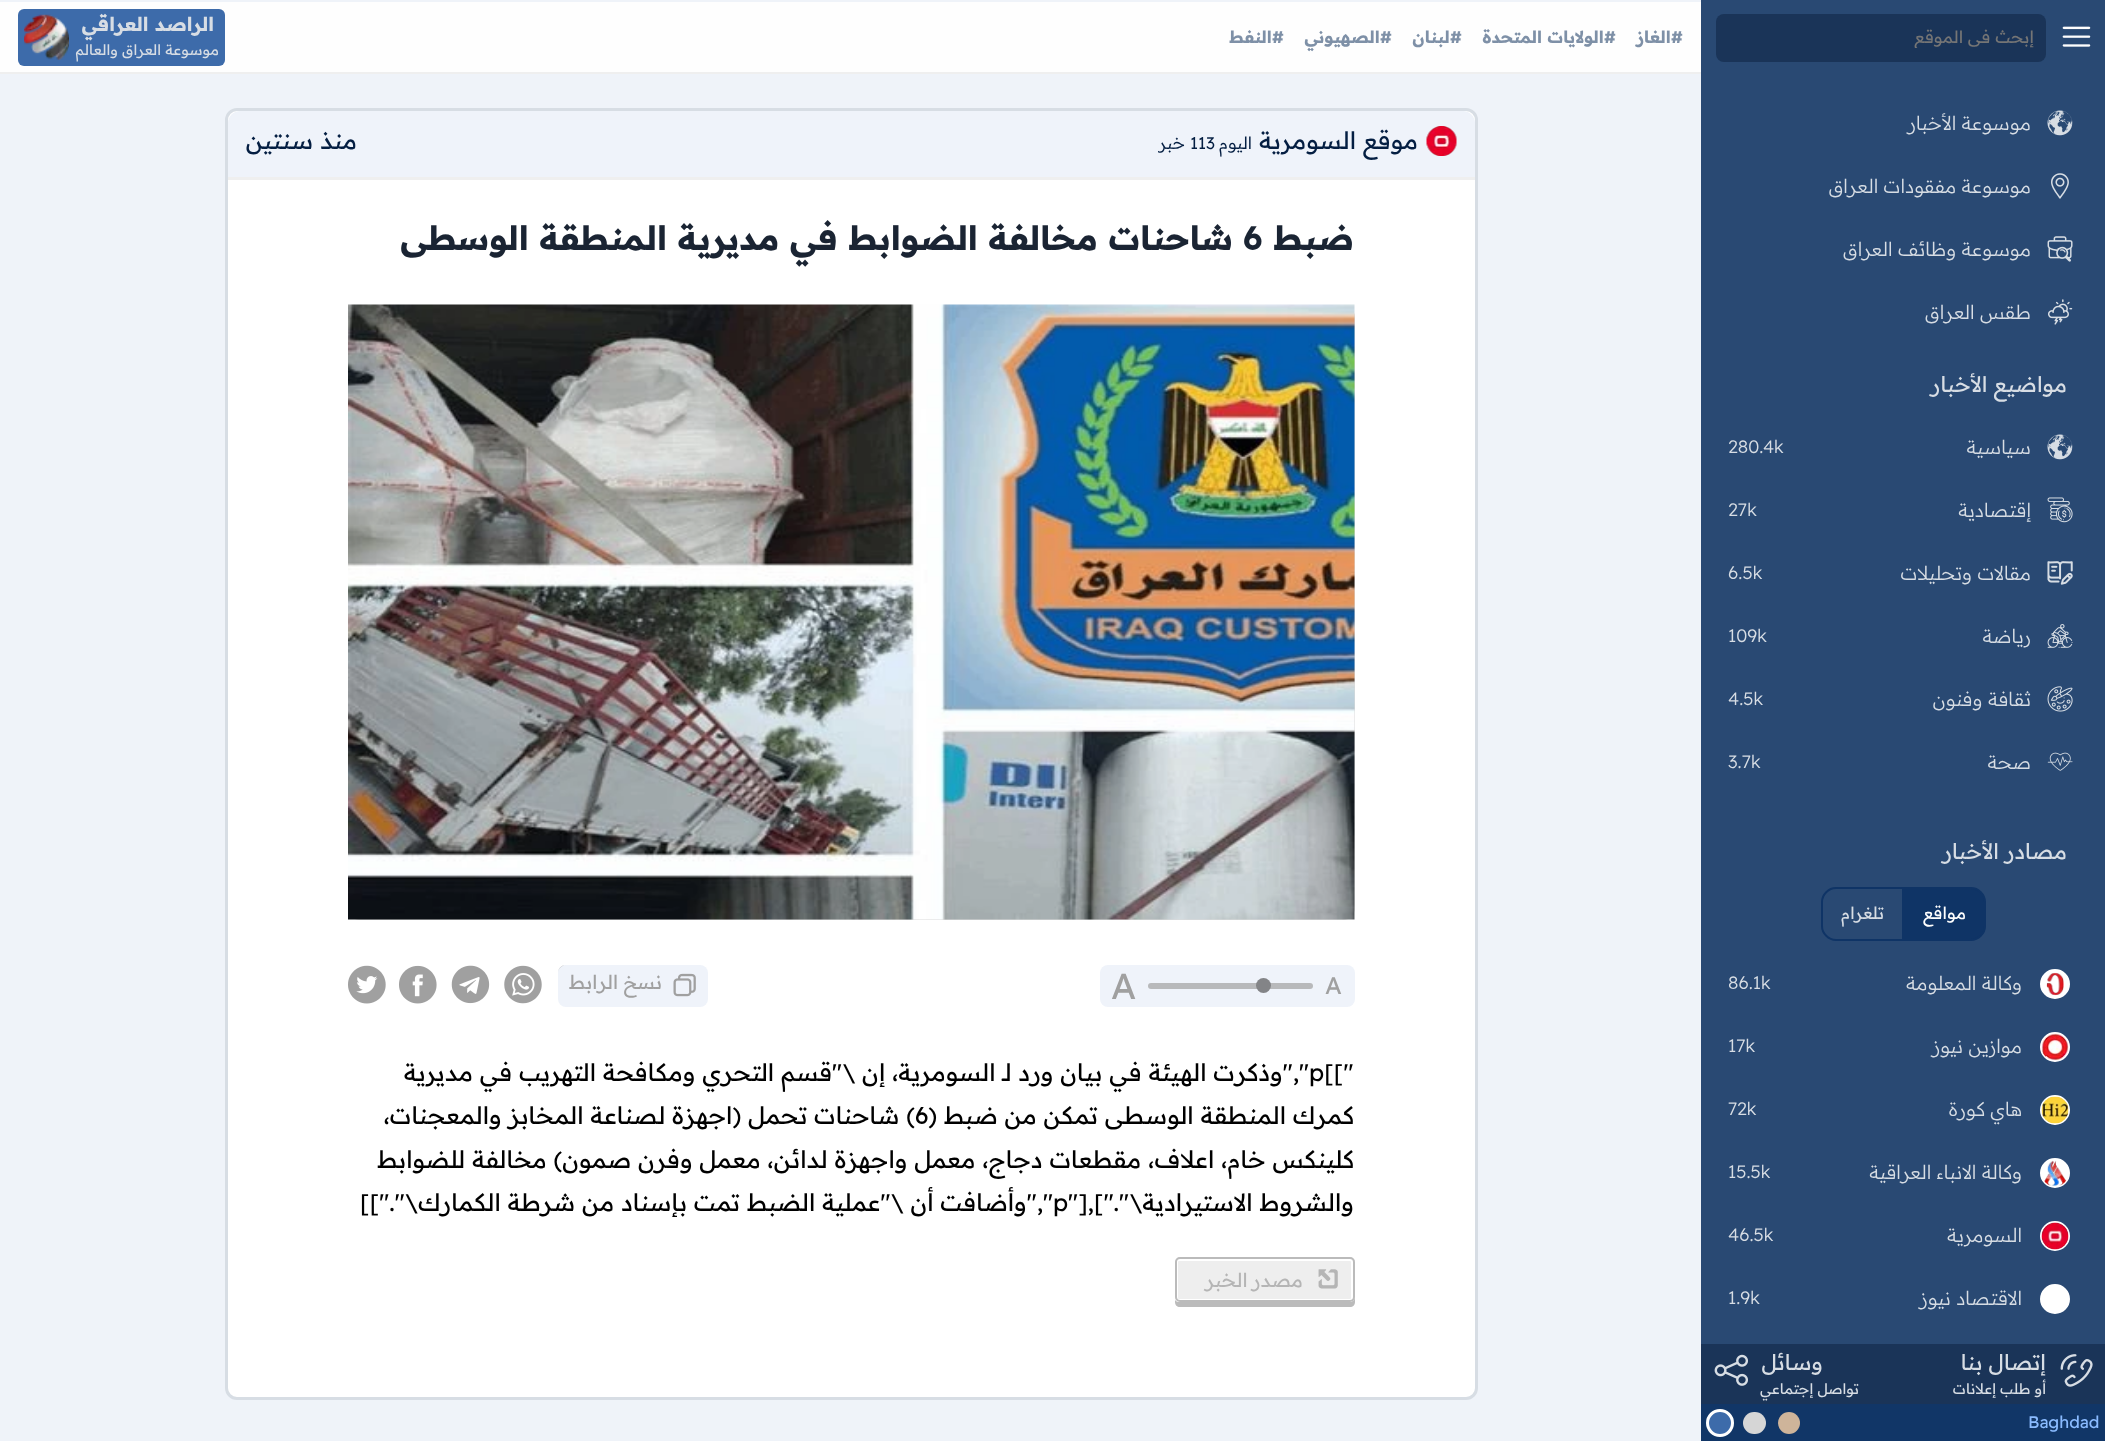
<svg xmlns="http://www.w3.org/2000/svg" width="2105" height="1441">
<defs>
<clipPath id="clip1"><rect x="1728" y="27" width="306" height="21"/></clipPath>
<clipPath id="clip2"><rect x="1158" y="119" width="261" height="46"/></clipPath>
</defs>
<rect width="100%" height="100%" fill="#eff3f9"/>
<rect x="1701" width="404" height="1344" fill="#294973"/>
<image x="2062" y="26" width="29" height="21" href="media/1.png"/>
<rect x="1716" y="14" width="330" height="48" rx="8" fill="#1a3458"/>
<g clip-path="url(#clip1)">
<text x="2034" y="43" style="font-family:Readex Pro;font-size:16.75px;direction:rtl;fill:#757575">إبحث في الموقع</text>
</g>
<rect y="2" width="1701" height="70" fill="#fefefe"/>
<rect y="72" width="1701" height="2" fill="#efefef"/>
<text x="1683" y="43" style="font-family:Readex Pro;font-size:16.75px;font-weight:bold;direction:rtl;fill:#7e90a7">#الغاز</text>
<text x="1616" y="43" style="font-family:Readex Pro;font-size:16.75px;font-weight:bold;direction:rtl;fill:#7e90a7">#الولايات المتحدة</text>
<text x="1462" y="43" style="font-family:Readex Pro;font-size:16.75px;font-weight:bold;direction:rtl;fill:#7e90a7">#لبنان</text>
<text x="1392" y="43" style="font-family:Readex Pro;font-size:16.75px;font-weight:bold;direction:rtl;fill:#7e90a7">#الصهيوني</text>
<text x="1284" y="43" style="font-family:Readex Pro;font-size:16.75px;font-weight:bold;direction:rtl;fill:#7e90a7">#النفط</text>
<rect x="18" y="9" width="207" height="57" rx="6" fill="#3d6baa"/>
<text x="214" y="31" style="font-family:Readex Pro;font-size:19.25px;font-weight:bold;direction:rtl;fill:#d7dde4">الراصد العراقي</text>
<image x="24" y="14" width="45" height="46" href="media/2.png"/>
<text x="219" y="55" style="font-family:Readex Pro;font-size:14.5px;direction:rtl;fill:#d7dde4">موسوعة العراق والعالم</text>
<image x="2047" y="110" width="26" height="26" href="media/3.png"/>
<text x="2031" y="130" style="font-family:Readex Pro;font-size:19.25px;font-weight:300;direction:rtl;fill:#d7dde4">موسوعة الأخبار</text>
<image x="2051" y="173" width="18" height="26" href="media/4.png"/>
<text x="2031" y="193" style="font-family:Readex Pro;font-size:19.25px;font-weight:300;direction:rtl;fill:#d7dde4">موسوعة مفقودات العراق</text>
<image x="2047" y="236" width="26" height="26" href="media/5.png"/>
<text x="2031" y="256" style="font-family:Readex Pro;font-size:19.25px;font-weight:300;direction:rtl;fill:#d7dde4">موسوعة وظائف العراق</text>
<image x="2048" y="299" width="25" height="26" href="media/6.png"/>
<text x="2031" y="319" style="font-family:Readex Pro;font-size:19.25px;font-weight:300;direction:rtl;fill:#d7dde4">طقس العراق</text>
<text x="2067" y="392" style="font-family:Readex Pro;font-size:21.5px;direction:rtl;fill:#d7dde4">مواضيع الأخبار</text>
<image x="2047" y="434" width="26" height="26" href="media/3.png"/>
<text x="2031" y="454" style="font-family:Readex Pro;font-size:19.25px;font-weight:300;direction:rtl;fill:#d7dde4">سياسية</text>
<text x="1728" y="453" style="font-family:Readex Pro;font-size:18px;font-weight:300;fill:#d7dde4">280.4k</text>
<image x="2047" y="497" width="26" height="26" href="media/7.png"/>
<text x="2031" y="517" style="font-family:Readex Pro;font-size:19.25px;font-weight:300;direction:rtl;fill:#d7dde4">إقتصادية</text>
<text x="1728" y="516" style="font-family:Readex Pro;font-size:18px;font-weight:300;fill:#d7dde4">27k</text>
<image x="2047" y="561" width="26" height="24" href="media/8.png"/>
<text x="2031" y="580" style="font-family:Readex Pro;font-size:19.25px;font-weight:300;direction:rtl;fill:#d7dde4">مقالات وتحليلات</text>
<text x="1728" y="579" style="font-family:Readex Pro;font-size:18px;font-weight:300;fill:#d7dde4">6.5k</text>
<image x="2047" y="624" width="26" height="24" href="media/9.png"/>
<text x="2031" y="643" style="font-family:Readex Pro;font-size:19.25px;font-weight:300;direction:rtl;fill:#d7dde4">رياضة</text>
<text x="1728" y="642" style="font-family:Readex Pro;font-size:18px;font-weight:300;fill:#d7dde4">109k</text>
<image x="2047" y="686" width="26" height="26" href="media/10.png"/>
<text x="2031" y="706" style="font-family:Readex Pro;font-size:19.25px;font-weight:300;direction:rtl;fill:#d7dde4">ثقافة وفنون</text>
<text x="1728" y="705" style="font-family:Readex Pro;font-size:18px;font-weight:300;fill:#d7dde4">4.5k</text>
<image x="2047" y="752" width="26" height="19" href="media/11.png"/>
<text x="2031" y="769" style="font-family:Readex Pro;font-size:19.25px;font-weight:300;direction:rtl;fill:#d7dde4">صحة</text>
<text x="1728" y="768" style="font-family:Readex Pro;font-size:18px;font-weight:300;fill:#d7dde4">3.7k</text>
<text x="2067" y="859" style="font-family:Readex Pro;font-size:21.5px;direction:rtl;fill:#d7dde4">مصادر الأخبار</text>
<path d="M1905 888h66c7.5 0 14 6.5 14 14v24c0 7.5-6.5 14-14 14h-66z" fill="#0f3466" stroke="#0f3466" stroke-width="2"/>
<text x="1966" y="919" style="font-family:Readex Pro;font-size:16.75px;direction:rtl;fill:#fff">مواقع</text>
<path d="M1836 888h67v52h-67c-7.5 0-14-6.5-14-14v-24c0-7.5 6.5-14 14-14z" fill="none" stroke="#0f3466" stroke-width="2"/>
<text x="1884" y="919" style="font-family:Readex Pro;font-size:16.75px;direction:rtl;fill:#d7dde4">تلغرام</text>
<circle cx="2055" cy="984" r="14" fill="#fff" stroke="#fff" stroke-width="2"/>
<image x="2046" y="972" width="18" height="24" href="media/12.png"/>
<text x="2022" y="990" style="font-family:Readex Pro;font-size:19.25px;font-weight:300;direction:rtl;fill:#d7dde4">وكالة المعلومة</text>
<text x="1728" y="989" style="font-family:Readex Pro;font-size:18px;font-weight:300;fill:#d7dde4">86.1k</text>
<circle cx="2055" cy="1047" r="14" fill="none" stroke="#fff" stroke-width="2"/>
<image x="2041" y="1033" width="28" height="28" href="media/13.png"/>
<text x="2022" y="1053" style="font-family:Readex Pro;font-size:19.25px;font-weight:300;direction:rtl;fill:#d7dde4">موازين نيوز</text>
<text x="1728" y="1052" style="font-family:Readex Pro;font-size:18px;font-weight:300;fill:#d7dde4">17k</text>
<circle cx="2055" cy="1110" r="14" fill="none" stroke="#fff" stroke-width="2"/>
<image x="2041" y="1096" width="28" height="28" href="media/14.png"/>
<text x="2022" y="1116" style="font-family:Readex Pro;font-size:19.25px;font-weight:300;direction:rtl;fill:#d7dde4">هاي كورة</text>
<text x="1728" y="1115" style="font-family:Readex Pro;font-size:18px;font-weight:300;fill:#d7dde4">72k</text>
<circle cx="2055" cy="1173" r="14" fill="#fff" stroke="#fff" stroke-width="2"/>
<image x="2044" y="1160" width="22" height="26" href="media/15.png"/>
<text x="2022" y="1179" style="font-family:Readex Pro;font-size:19.25px;font-weight:300;direction:rtl;fill:#d7dde4">وكالة الانباء العراقية</text>
<text x="1728" y="1178" style="font-family:Readex Pro;font-size:18px;font-weight:300;fill:#d7dde4">15.5k</text>
<circle cx="2055" cy="1236" r="14" fill="none" stroke="#fff" stroke-width="2"/>
<image x="2041" y="1222" width="28" height="28" href="media/16.png"/>
<text x="2022" y="1242" style="font-family:Readex Pro;font-size:19.25px;font-weight:300;direction:rtl;fill:#d7dde4">السومرية</text>
<text x="1728" y="1241" style="font-family:Readex Pro;font-size:18px;font-weight:300;fill:#d7dde4">46.5k</text>
<circle cx="2055" cy="1299" r="14" fill="#fff" stroke="#fff" stroke-width="2"/>
<text x="2022" y="1305" style="font-family:Readex Pro;font-size:19.25px;font-weight:300;direction:rtl;fill:#d7dde4">الاقتصاد نيوز</text>
<text x="1728" y="1304" style="font-family:Readex Pro;font-size:18px;font-weight:300;fill:#d7dde4">1.9k</text>
<rect x="1701" y="1344" width="404" height="60" fill="#1a3458"/>
<image x="2060" y="1354" width="33" height="33" href="media/17.png"/>
<text x="2046" y="1370" style="font-family:Readex Pro;font-size:21.5px;direction:rtl;fill:#d7dde4">إتصال بنا</text>
<text x="2046" y="1394" style="font-family:Readex Pro;font-size:14.5px;direction:rtl;fill:#d7dde4">أو طلب إعلانات</text>
<text x="1823" y="1370" style="font-family:Readex Pro;font-size:21.5px;direction:rtl;fill:#d7dde4">وسائل</text>
<image x="1714" y="1354" width="34" height="32" href="media/18.png"/>
<text x="1859" y="1394" style="font-family:Readex Pro;font-size:14.5px;direction:rtl;fill:#d7dde4">تواصل إجتماعي</text>
<rect x="1701" y="1404" width="404" height="37" fill="#113667"/>
<text x="2028" y="1428" style="font-family:Readex Pro;font-size:16.75px;fill:#8abbff">Baghdad</text>
<circle cx="1789" cy="1423" r="11" fill="#ceb49a"/>
<rect x="1743" y="1412" width="23" height="22" rx="11" fill="#d6d6d6"/>
<circle cx="1720" cy="1423" r="12.5" fill="#3d6baa" stroke="#fff" stroke-width="3"/>
<rect x="226.5" y="109.5" width="1250" height="1289" rx="10.5" fill="#fff" stroke="#d7dde4" stroke-width="3"/>
<path d="M240 111h1223c6.5 0 12 5.5 12 12v57h-1247v-57c0-6.5 5.5-12 12-12z" fill="#eff3fa"/>
<rect x="228" y="177" width="1247" height="3" fill="#efefef"/>
<image x="1426" y="126" width="31" height="30" href="media/19.png"/>
<text x="1418" y="149" style="font-family:Readex Pro;font-size:24px;direction:rtl;fill:#041e42">موقع السومرية</text>
<text x="1252" y="149" style="font-family:'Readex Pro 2';font-size:16.75px;font-weight:300;direction:rtl;fill:#041e42">اليوم</text>
<text x="1190" y="149" style="font-family:'Readex Pro 2';font-size:16.75px;font-weight:300;fill:#041e42">113</text>
<g clip-path="url(#clip2)">
<text x="1185" y="149" style="font-family:'Readex Pro 2';font-size:16.75px;font-weight:300;direction:rtl;fill:#041e42">خبر</text>
</g>
<text x="357" y="149" style="font-family:Readex Pro;font-size:24px;direction:rtl;fill:#041e42">منذ سنتين</text>
<text x="1354" y="250" style="font-family:Readex Pro;font-size:33.6px;font-weight:bold;direction:rtl;fill:#1a2433">ضبط</text>
<text x="1243" y="250" style="font-family:Readex Pro;font-size:33.6px;font-weight:bold;fill:#1a2433">6</text>
<text x="1233" y="250" style="font-family:Readex Pro;font-size:33.6px;font-weight:bold;direction:rtl;fill:#1a2433">شاحنات مخالفة الضوابط في مديرية المنطقة الوسطى</text>
<rect x="348" y="305" width="1007" height="615" rx="12" fill="#dadada"/>
<image x="348" y="304" width="1007" height="616" href="media/20.png"/>
<rect x="1100" y="965" width="255" height="42" rx="8" fill="#eff3fa"/>
<text x="1325" y="994" style="font-family:Readex Pro;font-size:24px;fill:#a0a0a0">A</text>
<rect x="1148" y="983" width="165" height="6" rx="3" fill="#b8b9bb"/>
<circle cx="1263.5" cy="985.5" r="7.5" fill="#838487"/>
<text x="1111" y="999" style="font-family:Readex Pro;font-size:36px;fill:#a0a0a0">A</text>
<rect x="558" y="965" width="150" height="42" rx="8" fill="#eff3fa"/>
<path d="M566 965c-4.5 0-8 3.5-8 8c0-4 4-8 8-8z" fill="#00000040"/>
<image x="673" y="973" width="23" height="24" href="media/21.png"/>
<text x="662" y="989" style="font-family:Readex Pro;font-size:19.25px;direction:rtl;fill:#a0a0a0">نسخ الرابط</text>
<image x="504" y="965" width="38" height="39" href="media/22.png"/>
<image x="451" y="965" width="39" height="39" href="media/23.png"/>
<image x="399" y="965" width="38" height="39" href="media/24.png"/>
<image x="348" y="965" width="38" height="39" href="media/25.png"/>
<text x="1309" y="1081" style="font-family:Readex Pro;font-size:24px;fill:#000">p[["</text>
<text x="1309" y="1081" style="font-family:Readex Pro;font-size:24px;direction:rtl;fill:#000">","وذكرت الهيئة في بيان ورد لـ السومرية، إن \"قسم التحري ومكافحة التهريب في مديرية</text>
<text x="1354" y="1124" style="font-family:Readex Pro;font-size:24px;direction:rtl;fill:#000">كمرك المنطقة الوسطى تمكن من ضبط (</text>
<text x="915" y="1124" style="font-family:Readex Pro;font-size:24px;fill:#000">6</text>
<text x="915" y="1124" style="font-family:Readex Pro;font-size:24px;direction:rtl;fill:#000">) شاحنات تحمل (اجهزة لصناعة المخابز والمعجنات،</text>
<text x="1354" y="1168" style="font-family:Readex Pro;font-size:24px;direction:rtl;fill:#000">كلينكس خام، اعلاف، مقطعات دجاج، معمل واجهزة لدائن، معمل وفرن صمون) مخالفة للضوابط</text>
<text x="1354" y="1211" style="font-family:Readex Pro;font-size:24px;direction:rtl;fill:#000">والشروط الاستيرادية\"."],["</text>
<text x="1053" y="1211" style="font-family:Readex Pro;font-size:24px;fill:#000">p</text>
<text x="1053" y="1211" style="font-family:Readex Pro;font-size:24px;direction:rtl;fill:#000">","وأضافت أن \"عملية الضبط تمت بإسناد من شرطة الكمارك\"."]]</text>
<path d="M1175 1300v2c0 3 2 5 5 5h170c3 0 5-2 5-5v-35l-1-2v33c0 2-2 4-4 4h-171c-2 0-3-1-4-2z" fill="#bbb"/>
<rect x="1175" y="1257" width="180" height="45" rx="5" fill="#eee"/>
<rect x="1177" y="1260" width="175" height="40" rx="2" fill="none" stroke="#fff" stroke-width="2"/>
<rect x="1176" y="1258" width="178" height="43" rx="4" fill="none" stroke="#bbb" stroke-width="2"/>
<image x="1318" y="1269" width="20" height="20" href="media/26.png"/>
<text x="1303" y="1287" word-spacing="-1" style="font-family:Readex Pro;font-size:19.25px;letter-spacing:1.5px;direction:rtl;fill:#b5b5b5">مصدر الخبر</text>
</svg>
